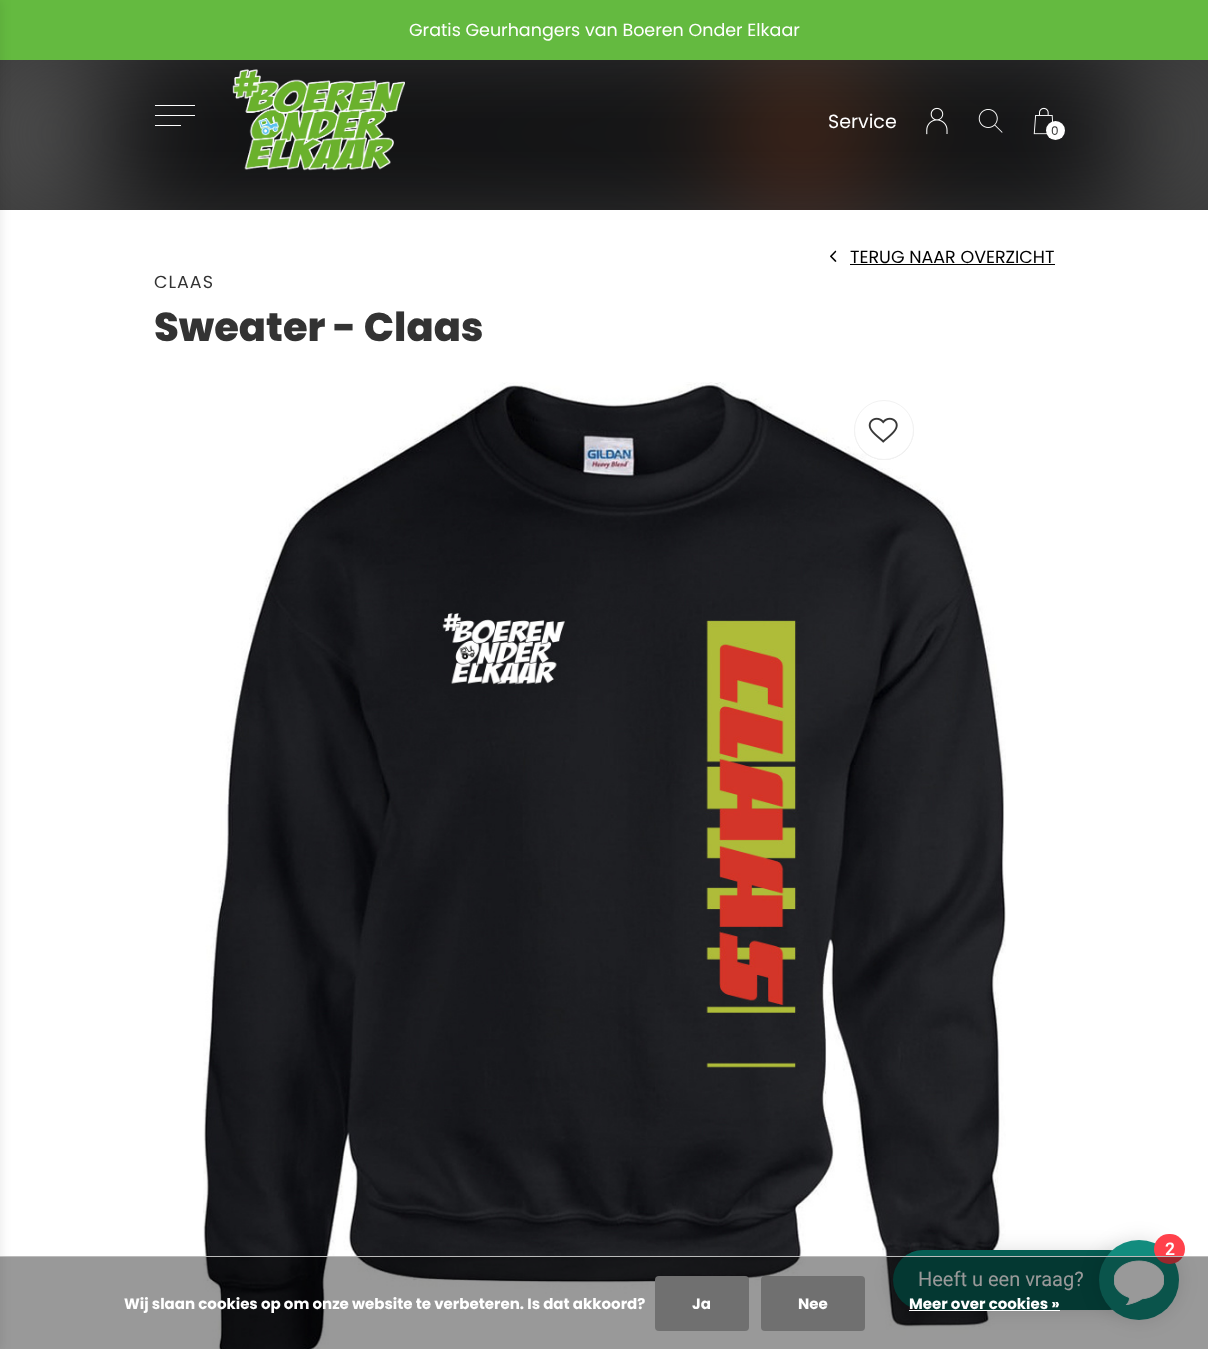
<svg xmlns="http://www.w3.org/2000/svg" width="1208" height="1349">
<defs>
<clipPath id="clip1"><rect x="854" y="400" width="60" height="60" rx="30"/></clipPath>
</defs>
<rect width="100%" height="100%" fill="#fff"/>
<rect width="1208" height="60" fill="#64ba40"/>
<rect y="60" width="1208" height="150" fill="#383838"/>
<image x="0" y="60" width="1208" height="150" href="media/5.png"/>
<rect x="-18" width="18" height="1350" fill="#0000001a" filter="blur(6px)"/>
<text x="409" y="36" style="font-family:Poppins;font-size:17.5px;fill:#fff">Gratis Geurhangers van Boeren Onder Elkaar</text>
<path d="M155 105h40v1h-40zm0 10h40v1h-40zm0 10h26v1h-26z" fill="#fff"/>
<image x="232" y="69" width="173" height="102" href="media/1.png"/>
<text x="828" y="128" style="font-family:Poppins;font-size:19px;fill:#fff">Service</text>
<image x="926" y="107" width="22" height="28" href="media/2.png"/>
<image x="978" y="109" width="25" height="24" href="media/3.png"/>
<image x="1033" y="107" width="21" height="28" href="media/4.png"/>
<circle cx="1055.5" cy="130.5" r="9.5" fill="#fff"/>
<text x="1051" y="135" style="font-family:Poppins;font-size:12px;fill:#333">0</text>
<image x="830" y="250" width="7" height="12" href="media/6.png"/>
<text x="850" y="263" style="font-family:Poppins;font-size:17.5px;fill:#000">TERUG NAAR OVERZICHT</text>
<rect x="850" y="264" width="205" height="1" fill="#000"/>
<text x="154" y="288" style="font-family:Poppins;font-size:17.5px;letter-spacing:1px;fill:#333">CLAAS</text>
<text x="154" y="341" style="font-family:Poppins;font-size:40px;font-weight:800;fill:#333">Sweater - Claas</text>
<image x="203" y="382" width="803" height="967" href="media/7.png"/>
<g clip-path="url(#clip1)">
<rect x="854" y="403" width="60" height="60" rx="30" fill="#0000001a" filter="blur(1px)"/>
</g>
<circle cx="884" cy="430" r="29.5" fill="#fff" stroke="#f2f2f2"/>
<image x="868" y="417" width="30" height="26" href="media/8.png"/>
<rect x="893" y="1250" width="246" height="60" rx="30" fill="#0000001f" filter="blur(10px)"/>
<rect x="893" y="1250" width="246" height="60" rx="30" fill="#075e54"/>
<rect x="1099" y="1240" width="80" height="80" rx="40" fill="#0000001f" filter="blur(10px)"/>
<circle cx="1139" cy="1280" r="40" fill="#128c7e"/>
<image x="1114" y="1260" width="50" height="45" href="media/9.png"/>
<rect x="1154" y="1234" width="31" height="30" rx="15" fill="#ff414b"/>
<text x="1165" y="1255" style="font-family:Roboto;font-size:17.5px;font-weight:600;fill:#fff">2</text>
<text x="918" y="1286" style="font-family:Roboto;font-size:20px;fill:#fff">Heeft u een vraag?</text>
<rect y="1257" width="1208" height="92" fill="#00000066"/>
<rect y="1256" width="1208" height="1" fill="#bbb"/>
<text x="124" y="1309" style="font-family:Poppins;font-size:15px;font-weight:bold;fill:#fff">Wij slaan cookies op om onze website te verbeteren. Is dat akkoord?</text>
<rect x="655" y="1276" width="94" height="55" rx="4" fill="#707070"/>
<text x="692" y="1309" style="font-family:Poppins;font-size:15px;font-weight:bold;fill:#fff">Ja</text>
<rect x="761" y="1276" width="104" height="55" rx="4" fill="#707070"/>
<text x="798" y="1309" style="font-family:Poppins;font-size:15px;font-weight:bold;fill:#fff">Nee</text>
<text x="909" y="1309" style="font-family:Poppins;font-size:15px;font-weight:bold;fill:#fff">Meer over cookies »</text>
<rect x="909" y="1310" width="151" height="1" fill="#fff"/>
</svg>
